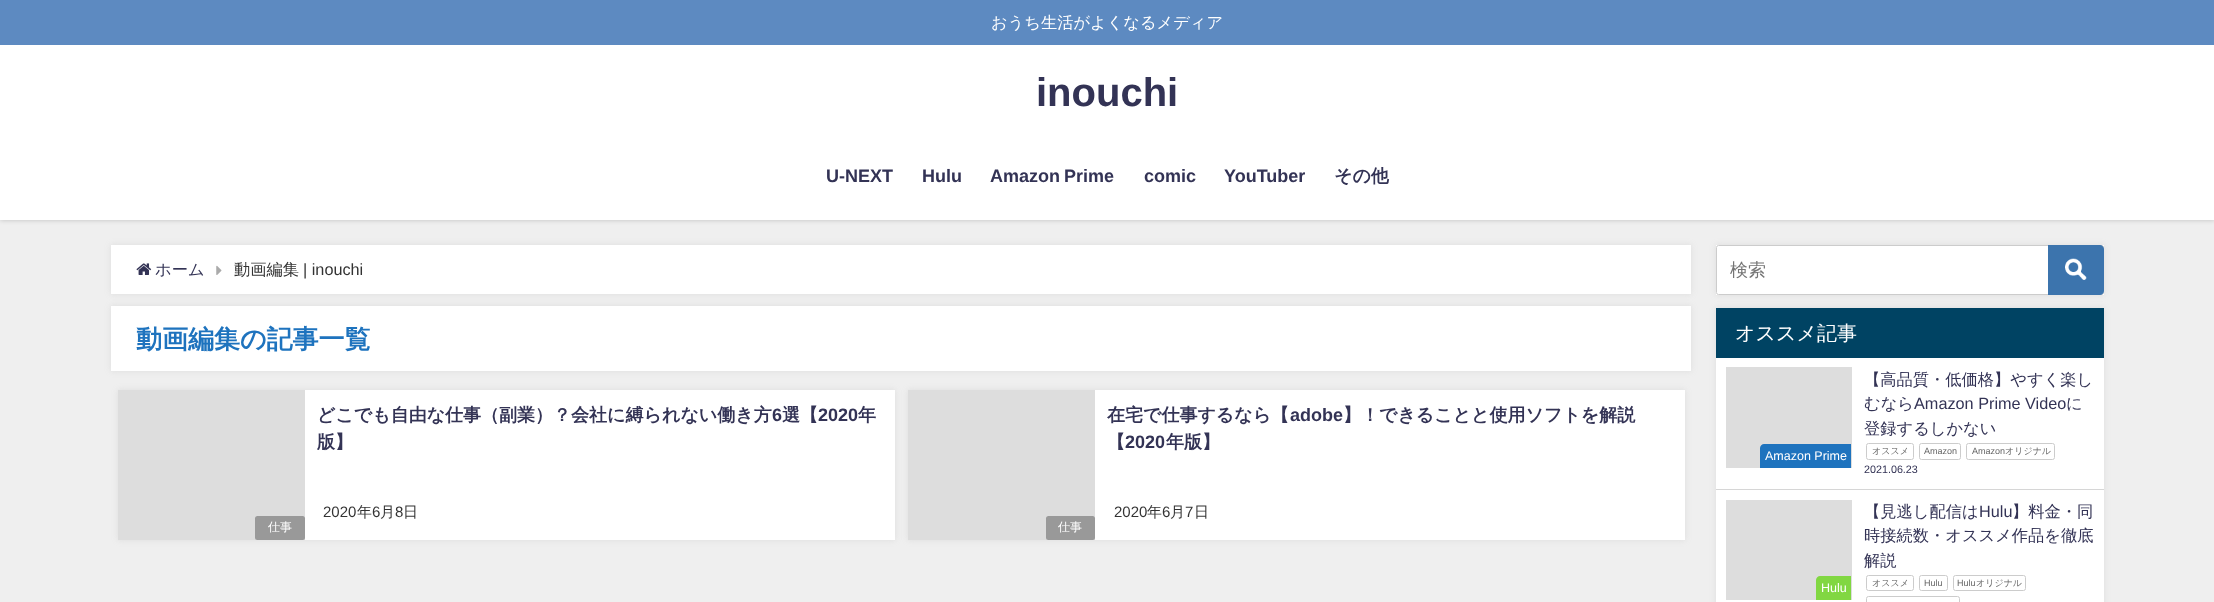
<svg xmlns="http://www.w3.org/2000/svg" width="2214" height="602">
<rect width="100%" height="100%" fill="#efefef"/>
<rect width="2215" height="220" fill="#00000033" filter="blur(2.5px)"/>
<rect y="45" width="2214" height="175" fill="#fff"/>
<rect width="2214" height="45" fill="#5d8ac1"/>
<text x="991" y="28" style="font-family:WenQuanYi Zen Hei;font-size:16.25px;font-weight:500;fill:#fff">おうち生活がよくなるメディア</text>
<text x="1036" y="106" style="font-family:Liberation Sans;font-size:40px;font-weight:bold;fill:#335">inouchi</text>
<text x="826" y="182" style="font-family:Liberation Sans;font-size:18px;font-weight:bold;fill:#335">U-NEXT</text>
<text x="922" y="182" style="font-family:Liberation Sans;font-size:18px;font-weight:bold;fill:#335">Hulu</text>
<text x="990" y="182" word-spacing="-1" style="font-family:Liberation Sans;font-size:18px;font-weight:bold;fill:#335">Amazon Prime</text>
<text x="1144" y="182" style="font-family:Liberation Sans;font-size:18px;font-weight:bold;fill:#335">comic</text>
<text x="1224" y="182" style="font-family:Liberation Sans;font-size:18px;font-weight:bold;fill:#335">YouTuber</text>
<text x="1334" y="182" style="font-family:WenQuanYi Zen Hei;font-size:18px;font-weight:bold;fill:#335">その他</text>
<rect x="111" y="245" width="1580" height="49" fill="#96969633" filter="blur(3px)"/>
<rect x="111" y="245" width="1580" height="49" fill="#fff"/>
<image x="136" y="263" width="16" height="12" href="media/1.png"/>
<text x="155" y="275" style="font-family:WenQuanYi Zen Hei;font-size:16.25px;font-weight:500;fill:#335">ホーム</text>
<image x="216" y="265" width="6" height="10" href="media/2.png"/>
<text x="234" y="275" style="font-family:WenQuanYi Zen Hei;font-size:16.25px;font-weight:500;fill:#333">動画編集</text>
<text x="303" y="275" style="font-family:Liberation Sans;font-size:16.25px;fill:#333">| inouchi</text>
<rect x="111" y="306" width="1580" height="65" fill="#96969633" filter="blur(3px)"/>
<rect x="111" y="306" width="1580" height="65" fill="#fff"/>
<text x="136" y="348" style="font-family:WenQuanYi Zen Hei;font-size:26px;font-weight:bold;fill:#1e73be">動画編集の記事一覧</text>
<rect x="118" y="390" width="777" height="150" fill="#96969633" filter="blur(3px)"/>
<rect x="305" y="390" width="590" height="150" fill="#fff"/>
<text x="317" y="421" style="font-family:WenQuanYi Zen Hei;font-size:18px;font-weight:bold;fill:#335">どこでも自由な仕事（副業）？会社に縛られない働き方</text>
<text x="772" y="421" style="font-family:Liberation Sans;font-size:18px;font-weight:bold;fill:#335">6</text>
<text x="782" y="421" style="font-family:WenQuanYi Zen Hei;font-size:18px;font-weight:bold;fill:#335">選【</text>
<text x="818" y="421" style="font-family:Liberation Sans;font-size:18px;font-weight:bold;fill:#335">2020</text>
<text x="858" y="421" style="font-family:WenQuanYi Zen Hei;font-size:18px;font-weight:bold;fill:#335">年</text>
<text x="317" y="448" style="font-family:WenQuanYi Zen Hei;font-size:18px;font-weight:bold;fill:#335">版】</text>
<text x="323" y="517" style="font-family:Liberation Sans;font-size:15px;fill:#333">2020</text>
<text x="357" y="517" style="font-family:WenQuanYi Zen Hei;font-size:15px;font-weight:500;fill:#333">年</text>
<text x="372" y="517" style="font-family:Liberation Sans;font-size:15px;fill:#333">6</text>
<text x="380" y="517" style="font-family:WenQuanYi Zen Hei;font-size:15px;font-weight:500;fill:#333">月</text>
<text x="395" y="517" style="font-family:Liberation Sans;font-size:15px;fill:#333">8</text>
<text x="403" y="517" style="font-family:WenQuanYi Zen Hei;font-size:15px;font-weight:500;fill:#333">日</text>
<rect x="118" y="390" width="187" height="150" fill="#ddd"/>
<rect x="255" y="516" width="50" height="24" rx="2.5" fill="#999"/>
<text x="268" y="531" style="font-family:WenQuanYi Zen Hei;font-size:12px;font-weight:500;fill:#fff">仕事</text>
<rect x="908" y="390" width="777" height="150" fill="#96969633" filter="blur(3px)"/>
<rect x="1095" y="390" width="590" height="150" fill="#fff"/>
<text x="1107" y="421" style="font-family:WenQuanYi Zen Hei;font-size:18px;font-weight:bold;fill:#335">在宅で仕事するなら【</text>
<text x="1290" y="421" style="font-family:Liberation Sans;font-size:18px;font-weight:bold;fill:#335">adobe</text>
<text x="1343" y="421" style="font-family:WenQuanYi Zen Hei;font-size:18px;font-weight:bold;fill:#335">】！できることと使用ソフトを解説</text>
<text x="1107" y="448" style="font-family:WenQuanYi Zen Hei;font-size:18px;font-weight:bold;fill:#335">【</text>
<text x="1125" y="448" style="font-family:Liberation Sans;font-size:18px;font-weight:bold;fill:#335">2020</text>
<text x="1166" y="448" style="font-family:WenQuanYi Zen Hei;font-size:18px;font-weight:bold;fill:#335">年版】</text>
<text x="1114" y="517" style="font-family:Liberation Sans;font-size:15px;fill:#333">2020</text>
<text x="1147" y="517" style="font-family:WenQuanYi Zen Hei;font-size:15px;font-weight:500;fill:#333">年</text>
<text x="1162" y="517" style="font-family:Liberation Sans;font-size:15px;fill:#333">6</text>
<text x="1170" y="517" style="font-family:WenQuanYi Zen Hei;font-size:15px;font-weight:500;fill:#333">月</text>
<text x="1185" y="517" style="font-family:Liberation Sans;font-size:15px;fill:#333">7</text>
<text x="1194" y="517" style="font-family:WenQuanYi Zen Hei;font-size:15px;font-weight:500;fill:#333">日</text>
<rect x="908" y="390" width="187" height="150" fill="#ddd"/>
<rect x="1046" y="516" width="49" height="24" rx="2.5" fill="#999"/>
<text x="1058" y="531" style="font-family:WenQuanYi Zen Hei;font-size:12px;font-weight:500;fill:#fff">仕事</text>
<rect x="1716" y="245" width="388" height="50" fill="#96969633" filter="blur(3px)"/>
<rect x="1716" y="245" width="388" height="50" fill="#fff"/>
<rect x="1716.5" y="245.5" width="387" height="49" rx="2" fill="none" stroke="#ccc"/>
<text x="1730" y="276" style="font-family:WenQuanYi Zen Hei;font-size:18px;font-weight:500;fill:#757575">検索</text>
<path d="M2048 245h52c2 0 4 2 4 4v42c0 2-2 4-4 4h-52z" fill="#3c74ad"/>
<image x="2065" y="258" width="22" height="22" href="media/3.png"/>
<rect x="1716" y="308" width="388" height="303" fill="#96969633" filter="blur(3px)"/>
<rect x="1716" y="358" width="388" height="244" fill="#fff"/>
<rect x="1716" y="308" width="388" height="50" fill="#004363"/>
<text x="1735" y="340" style="font-family:WenQuanYi Zen Hei;font-size:20px;font-weight:500;fill:#fff">オススメ記事</text>
<rect x="1716" y="489" width="388" height="1" fill="#d6d6d6"/>
<rect x="1726" y="367" width="126" height="101" fill="#ddd"/>
<path d="M1764 444h87v24h-91v-20c0-2 2-4 4-4z" fill="#1e73be"/>
<text x="1765" y="460" style="font-family:Liberation Sans;font-size:12.5px;fill:#fff">Amazon Prime</text>
<text x="1864" y="385" style="font-family:WenQuanYi Zen Hei;font-size:16.25px;font-weight:500;fill:#335">【高品質・低価格】やすく楽し</text>
<text x="1864" y="409" style="font-family:WenQuanYi Zen Hei;font-size:16.25px;font-weight:500;fill:#335">むなら</text>
<text x="1914" y="409" style="font-family:Liberation Sans;font-size:16.25px;fill:#335">Amazon Prime Video</text>
<text x="2066" y="409" style="font-family:WenQuanYi Zen Hei;font-size:16.25px;font-weight:500;fill:#335">に</text>
<text x="1864" y="434" style="font-family:WenQuanYi Zen Hei;font-size:16.25px;font-weight:500;fill:#335">登録するしかない</text>
<rect x="1866.5" y="443.5" width="47" height="16" rx="2" fill="none" stroke="#ccc"/>
<text x="1872" y="454" style="font-family:WenQuanYi Zen Hei;font-size:9px;font-weight:500;fill:#666">オススメ</text>
<rect x="1919.5" y="443.5" width="41" height="16" rx="2" fill="none" stroke="#ccc"/>
<text x="1924" y="454" style="font-family:Liberation Sans;font-size:9px;fill:#666">Amazon</text>
<rect x="1966.5" y="443.5" width="88" height="16" rx="2" fill="none" stroke="#ccc"/>
<text x="1972" y="454" style="font-family:Liberation Sans;font-size:9px;fill:#666">Amazon</text>
<text x="2005" y="454" style="font-family:WenQuanYi Zen Hei;font-size:9px;font-weight:500;fill:#666">オリジナル</text>
<text x="1864" y="473" style="font-family:Liberation Sans;font-size:10.75px;fill:#335">2021.06.23</text>
<rect x="1726" y="500" width="126" height="100" fill="#ddd"/>
<path d="M1820 576h31v24h-35v-20c0-2 2-4 4-4z" fill="#81d742"/>
<text x="1821" y="592" style="font-family:Liberation Sans;font-size:12.5px;fill:#fff">Hulu</text>
<text x="1864" y="517" style="font-family:WenQuanYi Zen Hei;font-size:16.25px;font-weight:500;fill:#335">【見逃し配信は</text>
<text x="1979" y="517" style="font-family:Liberation Sans;font-size:16.25px;fill:#335">Hulu</text>
<text x="2012" y="517" style="font-family:WenQuanYi Zen Hei;font-size:16.25px;font-weight:500;fill:#335">】料金・同</text>
<text x="1864" y="541" style="font-family:WenQuanYi Zen Hei;font-size:16.25px;font-weight:500;fill:#335">時接続数・オススメ作品を徹底</text>
<text x="1864" y="566" style="font-family:WenQuanYi Zen Hei;font-size:16.25px;font-weight:500;fill:#335">解説</text>
<rect x="1866.5" y="575.5" width="47" height="15" rx="2" fill="none" stroke="#ccc"/>
<text x="1872" y="586" style="font-family:WenQuanYi Zen Hei;font-size:9px;font-weight:500;fill:#666">オススメ</text>
<rect x="1919.5" y="575.5" width="28" height="15" rx="2" fill="none" stroke="#ccc"/>
<text x="1924" y="586" style="font-family:Liberation Sans;font-size:9px;fill:#666">Hulu</text>
<rect x="1953.5" y="575.5" width="72" height="15" rx="2" fill="none" stroke="#ccc"/>
<text x="1957" y="586" style="font-family:Liberation Sans;font-size:9px;fill:#666">Hulu</text>
<text x="1976" y="586" style="font-family:WenQuanYi Zen Hei;font-size:9px;font-weight:500;fill:#666">オリジナル</text>
<rect x="1866.5" y="596.5" width="93" height="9" rx="2" fill="none" stroke="#ccc"/>
</svg>
